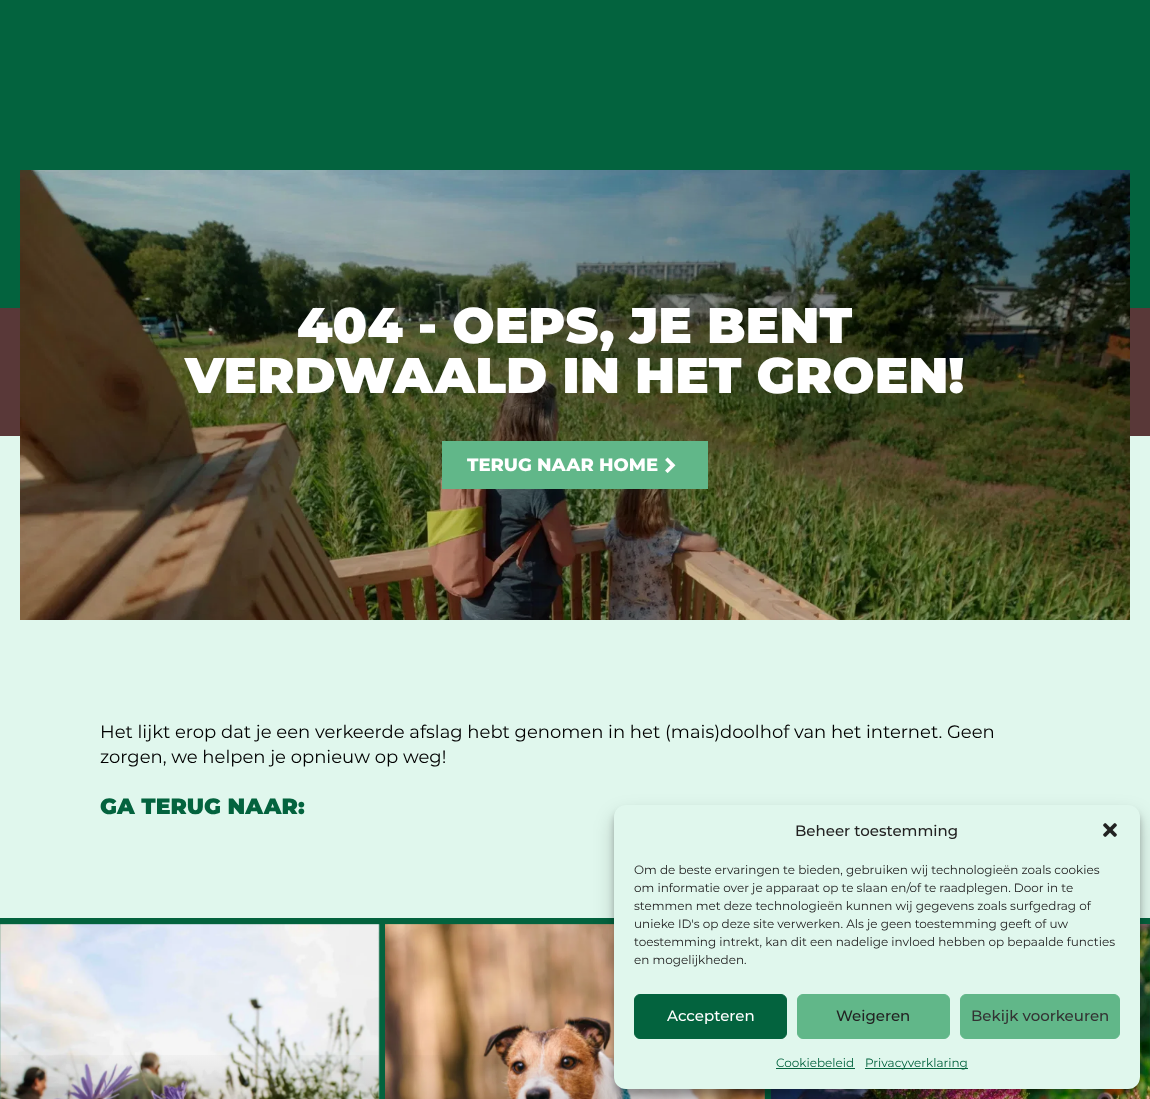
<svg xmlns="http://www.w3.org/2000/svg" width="1150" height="1099">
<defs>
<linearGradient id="g1" gradientUnits="userSpaceOnUse" x1="190" y1="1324" x2="190" y2="924"><stop offset="0.17" stop-color="#000" stop-opacity="0.42"/><stop offset="0.7" stop-color="#000" stop-opacity="0"/></linearGradient>
<linearGradient id="g2" gradientUnits="userSpaceOnUse" x1="575" y1="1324" x2="575" y2="924"><stop offset="0.17" stop-color="#000" stop-opacity="0.42"/><stop offset="0.7" stop-color="#000" stop-opacity="0"/></linearGradient>
<linearGradient id="g3" gradientUnits="userSpaceOnUse" x1="961" y1="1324" x2="961" y2="924"><stop offset="0.17" stop-color="#000" stop-opacity="0.42"/><stop offset="0.7" stop-color="#000" stop-opacity="0"/></linearGradient>
</defs>
<rect width="100%" height="100%" fill="#e0f7ed"/>
<rect y="308" width="1150" height="128" fill="#593838"/>
<rect width="1150" height="308" fill="#03633e"/>
<image x="20" y="170" width="1110" height="450" href="media/1.png"/>
<text x="297" y="343" style="font-family:Montserrat;font-size:50px;font-weight:900;fill:#fff">404 - OEPS, JE BENT</text>
<text x="185" y="393" style="font-family:Montserrat;font-size:50px;font-weight:900;fill:#fff">VERDWAALD IN HET GROEN!</text>
<rect x="442" y="441" width="266" height="48" fill="#61b789"/>
<text x="467" y="471" style="font-family:Montserrat;font-size:18px;font-weight:800;fill:#fff">TERUG NAAR HOME</text>
<image x="665" y="457" width="11" height="16" href="media/2.png"/>
<text x="100" y="738" style="font-family:Montserrat;font-size:18px;fill:#000">Het lijkt erop dat je een verkeerde afslag hebt genomen in het (mais)doolhof van het internet. Geen</text>
<text x="100" y="763" style="font-family:Montserrat;font-size:18px;fill:#000">zorgen, we helpen je opnieuw op weg!</text>
<text x="100" y="814" style="font-family:Montserrat;font-size:22px;font-weight:900;fill:#03633e">GA TERUG NAAR:</text>
<rect y="918" width="1150" height="181" fill="#03633e"/>
<image x="0" y="924" width="380" height="175" href="media/3.png"/>
<rect y="1055" width="379" height="44" fill="url(#g1)"/>
<image x="385" y="924" width="380" height="175" href="media/4.png"/>
<rect x="385" y="1055" width="380" height="44" fill="url(#g2)"/>
<image x="770" y="924" width="380" height="175" href="media/5.png"/>
<rect x="771" y="1055" width="379" height="44" fill="url(#g3)"/>
<rect x="614" y="811" width="526" height="284" rx="12" fill="#0000003b" filter="blur(3px)"/>
<rect x="614" y="815" width="526" height="284" rx="12" fill="#00000030" filter="blur(10px)"/>
<rect x="614" y="805" width="526" height="284" rx="12" fill="#e0f7ed"/>
<text x="795" y="836" style="font-family:Montserrat;font-size:15px;font-weight:500;fill:#222">Beheer toestemming</text>
<image x="1103" y="823" width="14" height="14" href="media/6.png"/>
<text x="634" y="874" style="font-family:Montserrat;font-size:12px;fill:#222">Om de beste ervaringen te bieden, gebruiken wij technologieën zoals cookies</text>
<text x="634" y="892" style="font-family:Montserrat;font-size:12px;fill:#222">om informatie over je apparaat op te slaan en/of te raadplegen. Door in te</text>
<text x="634" y="910" style="font-family:Montserrat;font-size:12px;fill:#222">stemmen met deze technologieën kunnen wij gegevens zoals surfgedrag of</text>
<text x="634" y="928" style="font-family:Montserrat;font-size:12px;fill:#222">unieke ID's op deze site verwerken. Als je geen toestemming geeft of uw</text>
<text x="634" y="946" style="font-family:Montserrat;font-size:12px;fill:#222">toestemming intrekt, kan dit een nadelige invloed hebben op bepaalde functies</text>
<text x="634" y="964" style="font-family:Montserrat;font-size:12px;fill:#222">en mogelijkheden.</text>
<rect x="634.5" y="994.5" width="152" height="44" rx="5.5" fill="#03633e" stroke="#03633e"/>
<text x="667" y="1021" style="font-family:Montserrat;font-size:15px;font-weight:500;fill:#fff">Accepteren</text>
<rect x="797.5" y="994.5" width="152" height="44" rx="5.5" fill="#61b789" stroke="#61b789"/>
<text x="836" y="1021" style="font-family:Montserrat;font-size:15px;font-weight:500;fill:#222">Weigeren</text>
<rect x="960.5" y="994.5" width="159" height="44" rx="5.5" fill="#61b789" stroke="#61b789"/>
<text x="971" y="1021" style="font-family:Montserrat;font-size:15px;font-weight:500;fill:#333">Bekijk voorkeuren</text>
<text x="776" y="1067" style="font-family:Montserrat;font-size:12px;fill:#03633e">Cookiebeleid</text>
<rect x="776" y="1068" width="79" height="1" fill="#03633e"/>
<rect x="865" y="1068" width="103" height="1" fill="#03633e"/>
<text x="865" y="1067" style="font-family:Montserrat;font-size:12px;fill:#03633e">Privacyverklaring</text>
</svg>
